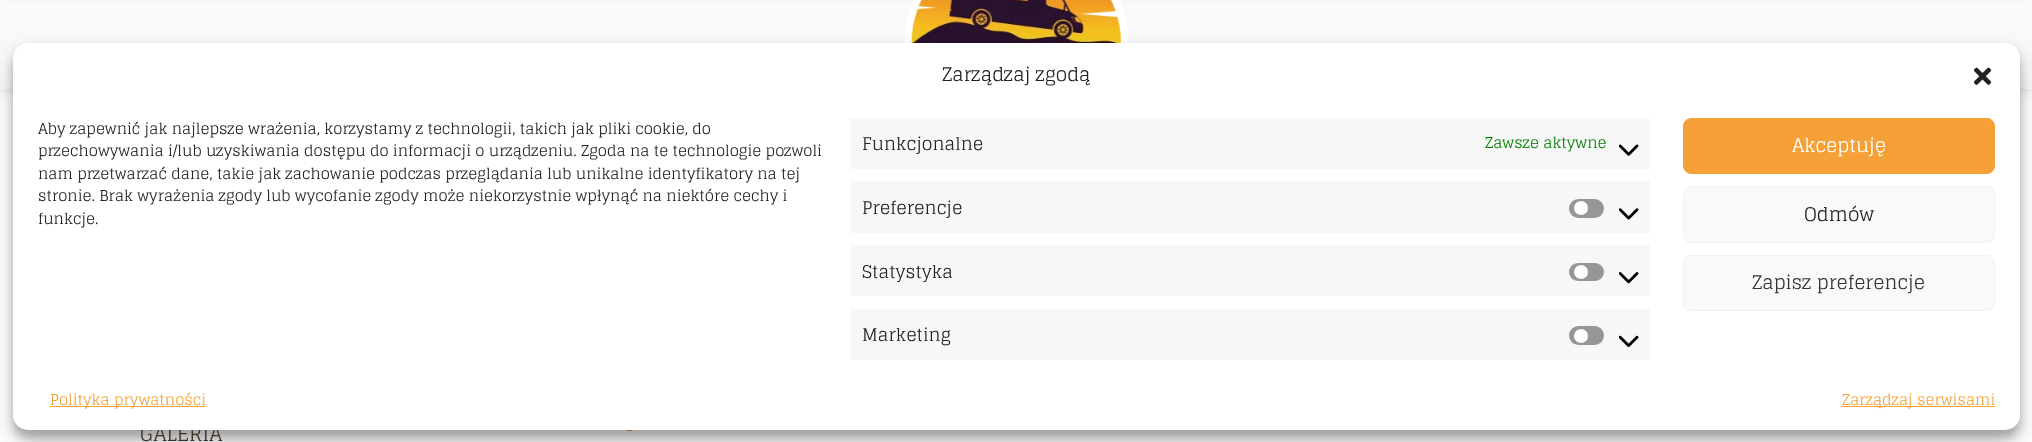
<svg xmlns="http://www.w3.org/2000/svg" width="2032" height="442">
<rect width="100%" height="100%" fill="#fff"/>
<rect y="3" width="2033" height="87" fill="#3636362e" filter="blur(6px)"/>
<rect y="1" width="2032" height="88" fill="#f8f9fa"/>
<rect x="904" y="-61" width="225" height="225" rx="112.5" fill="#80808021" filter="blur(0.5px)"/>
<circle cx="1016.5" cy="45.5" r="108.5" fill="#fff" stroke="#fff" stroke-width="8"/>
<image x="910" y="0" width="212" height="43" href="media/6.png"/>
<image x="625" y="430" width="8" height="2" href="media/7.png"/>
<rect x="13" y="50" width="2007" height="388" rx="15" fill="#0000003b" filter="blur(4px)"/>
<rect x="13" y="55" width="2007" height="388" rx="15" fill="#00000030" filter="blur(12.5px)"/>
<text x="140" y="441" style="font-family:Glegoo;font-size:20px;fill:#3e3225">GALERIA</text>
<rect x="13" y="43" width="2007" height="387" rx="15" fill="#fff"/>
<text x="942" y="81" style="font-family:Glegoo;font-size:18.75px;fill:#222">Zarządzaj zgodą</text>
<image x="1973" y="67" width="19" height="18" href="media/1.png"/>
<text x="38" y="134" style="font-family:Glegoo;font-size:15px;fill:#222">Aby zapewnić jak najlepsze wrażenia, korzystamy z technologii, takich jak pliki cookie, do</text>
<text x="38" y="156" style="font-family:Glegoo;font-size:15px;fill:#222">przechowywania i/lub uzyskiwania dostępu do informacji o urządzeniu. Zgoda na te technologie pozwoli</text>
<text x="38" y="179" style="font-family:Glegoo;font-size:15px;fill:#222">nam przetwarzać dane, takie jak zachowanie podczas przeglądania lub unikalne identyfikatory na tej</text>
<text x="38" y="201" style="font-family:Glegoo;font-size:15px;fill:#222">stronie. Brak wyrażenia zgody lub wycofanie zgody może niekorzystnie wpłynąć na niektóre cechy i</text>
<text x="38" y="224" style="font-family:Glegoo;font-size:15px;fill:#222">funkcje.</text>
<rect x="850" y="118" width="800" height="51" fill="#f7f7f7"/>
<text x="862" y="150" style="font-family:Glegoo;font-size:17.5px;fill:#222">Funkcjonalne</text>
<text x="1485" y="148" style="font-family:Glegoo;font-size:15px;fill:#008000">Zawsze aktywne</text>
<image x="1619" y="144" width="20" height="12" href="media/2.png"/>
<rect x="850" y="181" width="800" height="52" fill="#f7f7f7"/>
<text x="862" y="214" style="font-family:Glegoo;font-size:17.5px;fill:#222">Preferencje</text>
<rect x="1569" y="199" width="35" height="19" rx="9.5" fill="#969696"/>
<circle cx="1581" cy="208" r="7" fill="#fff"/>
<image x="1619" y="208" width="20" height="12" href="media/3.png"/>
<rect x="850" y="245" width="800" height="51" fill="#f7f7f7"/>
<text x="862" y="278" style="font-family:Glegoo;font-size:17.5px;fill:#222">Statystyka</text>
<rect x="1569" y="263" width="35" height="18" rx="9" fill="#969696"/>
<circle cx="1581" cy="272" r="7" fill="#fff"/>
<image x="1619" y="272" width="20" height="12" href="media/4.png"/>
<rect x="850" y="309" width="800" height="51" fill="#f7f7f7"/>
<text x="862" y="341" style="font-family:Glegoo;font-size:17.5px;fill:#222">Marketing</text>
<rect x="1569" y="326" width="35" height="19" rx="9.5" fill="#969696"/>
<circle cx="1581" cy="336" r="7" fill="#fff"/>
<image x="1619" y="335" width="20" height="12" href="media/5.png"/>
<rect x="1683.5" y="118.5" width="311" height="55" rx="7.5" fill="#f6a137" stroke="#f6a137"/>
<text x="1792" y="152" style="font-family:Glegoo;font-size:18.75px;fill:#fff">Akceptuję</text>
<rect x="1683.5" y="186.5" width="311" height="56" rx="7.5" fill="#f9f9f9" stroke="#f2f2f2"/>
<text x="1804" y="221" style="font-family:Glegoo;font-size:18.75px;fill:#222">Odmów</text>
<rect x="1683.5" y="255.5" width="311" height="55" rx="7.5" fill="#f9f9f9" stroke="#f2f2f2"/>
<text x="1752" y="289" style="font-family:Glegoo;font-size:18.75px;fill:#333">Zapisz preferencje</text>
<rect x="50" y="406" width="156" height="1" fill="#f6a137"/>
<text x="50" y="405" style="font-family:Glegoo;font-size:15px;fill:#f6a137">Polityka prywatności</text>
<rect x="1841" y="406" width="154" height="1" fill="#f6a137"/>
<text x="1842" y="405" style="font-family:Glegoo;font-size:15px;fill:#f6a137">Zarządzaj serwisami</text>
</svg>
